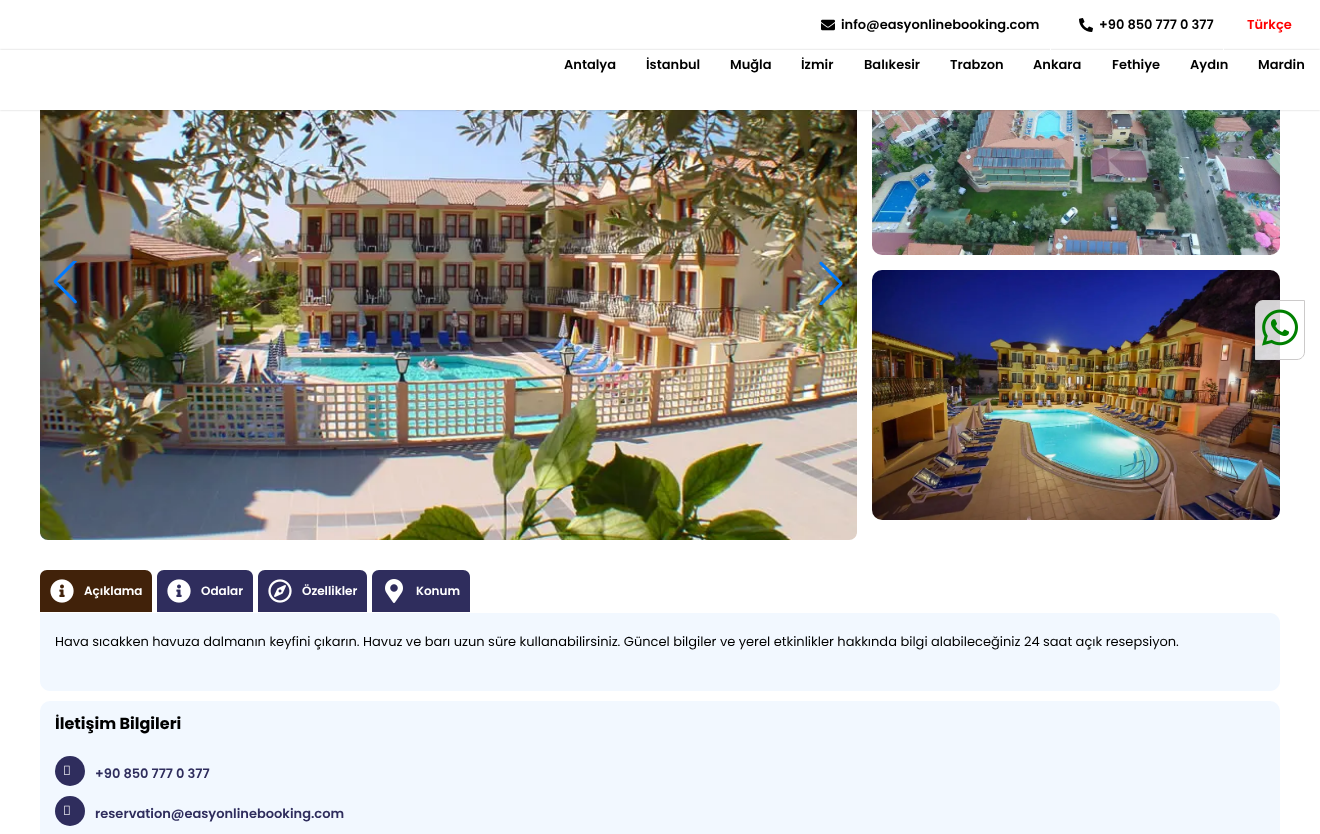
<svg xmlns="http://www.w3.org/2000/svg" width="1320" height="834">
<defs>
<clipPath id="clip1"><path d="M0 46h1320v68h-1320zm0 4h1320v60h-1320z" clip-rule="evenodd"/></clipPath>
</defs>
<rect width="100%" height="100%" fill="#fff"/>
<image x="40" y="110" width="817" height="430" href="media/4.png"/>
<image x="872" y="110" width="408" height="145" href="media/7.png"/>
<g clip-path="url(#clip1)">
<rect y="50" width="1320" height="60" fill="#00000033" filter="blur(1px)"/>
</g>
<rect x="1050" y="48" width="1" height="2" fill="#fff"/>
<image x="821" y="19" width="14" height="12" href="media/1.png"/>
<text x="841" y="29" style="font-family:Poppins;font-size:13px;font-weight:600;fill:#000">info@easyonlinebooking.com</text>
<rect x="1223" y="48" width="1" height="2" fill="#fff"/>
<image x="1079" y="18" width="14" height="14" href="media/2.png"/>
<text x="1099" y="29" style="font-family:Poppins;font-size:13px;font-weight:600;fill:#000">+90 850 777 0 377</text>
<text x="1247" y="29" style="font-family:Poppins;font-size:13px;font-weight:600;fill:#f00">Türkçe</text>
<text x="564" y="69" style="font-family:Poppins;font-size:13px;font-weight:600;fill:#000">Antalya</text>
<text x="646" y="69" style="font-family:Poppins;font-size:13px;font-weight:600;fill:#000">İstanbul</text>
<text x="730" y="69" style="font-family:Poppins;font-size:13px;font-weight:600;fill:#000">Muğla</text>
<text x="801" y="69" style="font-family:Poppins;font-size:13px;font-weight:600;fill:#000">İzmir</text>
<text x="864" y="69" style="font-family:Poppins;font-size:13px;font-weight:600;fill:#000">Balıkesir</text>
<text x="950" y="69" style="font-family:Poppins;font-size:13px;font-weight:600;fill:#000">Trabzon</text>
<text x="1033" y="69" style="font-family:Poppins;font-size:13px;font-weight:600;fill:#000">Ankara</text>
<text x="1112" y="69" style="font-family:Poppins;font-size:13px;font-weight:600;fill:#000">Fethiye</text>
<text x="1190" y="69" style="font-family:Poppins;font-size:13px;font-weight:600;fill:#000">Aydın</text>
<text x="1258" y="69" style="font-family:Poppins;font-size:13px;font-weight:600;fill:#000">Mardin</text>
<image x="872" y="270" width="408" height="250" href="media/8.png"/>
<path d="M1263 300.5h41.5v51.5c0 4-3.5 7.5-7.5 7.5h-41.5v-51.5c0-4 3.5-7.5 7.5-7.5z" fill="#ffffffd1" stroke="#cccaca"/>
<image x="1262" y="309" width="36" height="37" href="media/3.png"/>
<image x="53" y="261" width="24" height="43" href="media/5.png"/>
<image x="819" y="261" width="24" height="44" href="media/6.png"/>
<path d="M47 570h98c4 0 7 3 7 7v35h-112v-35c0-4 3-7 7-7z" fill="#41220a"/>
<image x="50" y="579" width="24" height="24" href="media/9.png"/>
<text x="84" y="595" style="font-family:Poppins;font-size:12px;font-weight:600;fill:#fff">Açıklama</text>
<path d="M164 570h82c4 0 7 3 7 7v35h-96v-35c0-4 3-7 7-7z" fill="#2f2d5d"/>
<image x="167" y="579" width="24" height="24" href="media/10.png"/>
<text x="201" y="595" style="font-family:Poppins;font-size:12px;font-weight:600;fill:#fff">Odalar</text>
<path d="M265 570h95c4 0 7 3 7 7v35h-109v-35c0-4 3-7 7-7z" fill="#2f2d5d"/>
<image x="268" y="579" width="24" height="24" href="media/11.png"/>
<text x="302" y="595" style="font-family:Poppins;font-size:12px;font-weight:600;fill:#fff">Özellikler</text>
<path d="M379 570h84c4 0 7 3 7 7v35h-98v-35c0-4 3-7 7-7z" fill="#2f2d5d"/>
<image x="385" y="579" width="18" height="24" href="media/12.png"/>
<text x="416" y="595" style="font-family:Poppins;font-size:12px;font-weight:600;fill:#fff">Konum</text>
<path d="M40 613h1230c5.5 0 10 4.5 10 10v58c0 5.5-4.5 10-10 10h-1220c-5.5 0-10-4.5-10-10z" fill="#f2f8ff"/>
<text x="55" y="646" style="font-family:Poppins;font-size:13px;fill:#000">Hava sıcakken havuza dalmanın keyfini çıkarın. Havuz ve barı uzun süre kullanabilirsiniz. Güncel bilgiler ve yerel etkinlikler hakkında bilgi alabileceğiniz 24 saat açık resepsiyon.</text>
<rect x="40" y="701" width="1240" height="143" rx="10" fill="#f2f8ff"/>
<text x="55" y="729" style="font-family:Poppins;font-size:16px;font-weight:bold;fill:#000">İletişim Bilgileri</text>
<circle cx="70" cy="771" r="15" fill="#2f2d5d"/>
<image x="64" y="765" width="6" height="10" href="media/13.png"/>
<text x="95" y="778" style="font-family:Poppins;font-size:13px;font-weight:600;fill:#2f2d5d">+90 850 777 0 377</text>
<circle cx="70" cy="811" r="15" fill="#2f2d5d"/>
<image x="64" y="805" width="6" height="10" href="media/13.png"/>
<text x="95" y="818" style="font-family:Poppins;font-size:13px;font-weight:600;fill:#2f2d5d">reservation@easyonlinebooking.com</text>
</svg>
